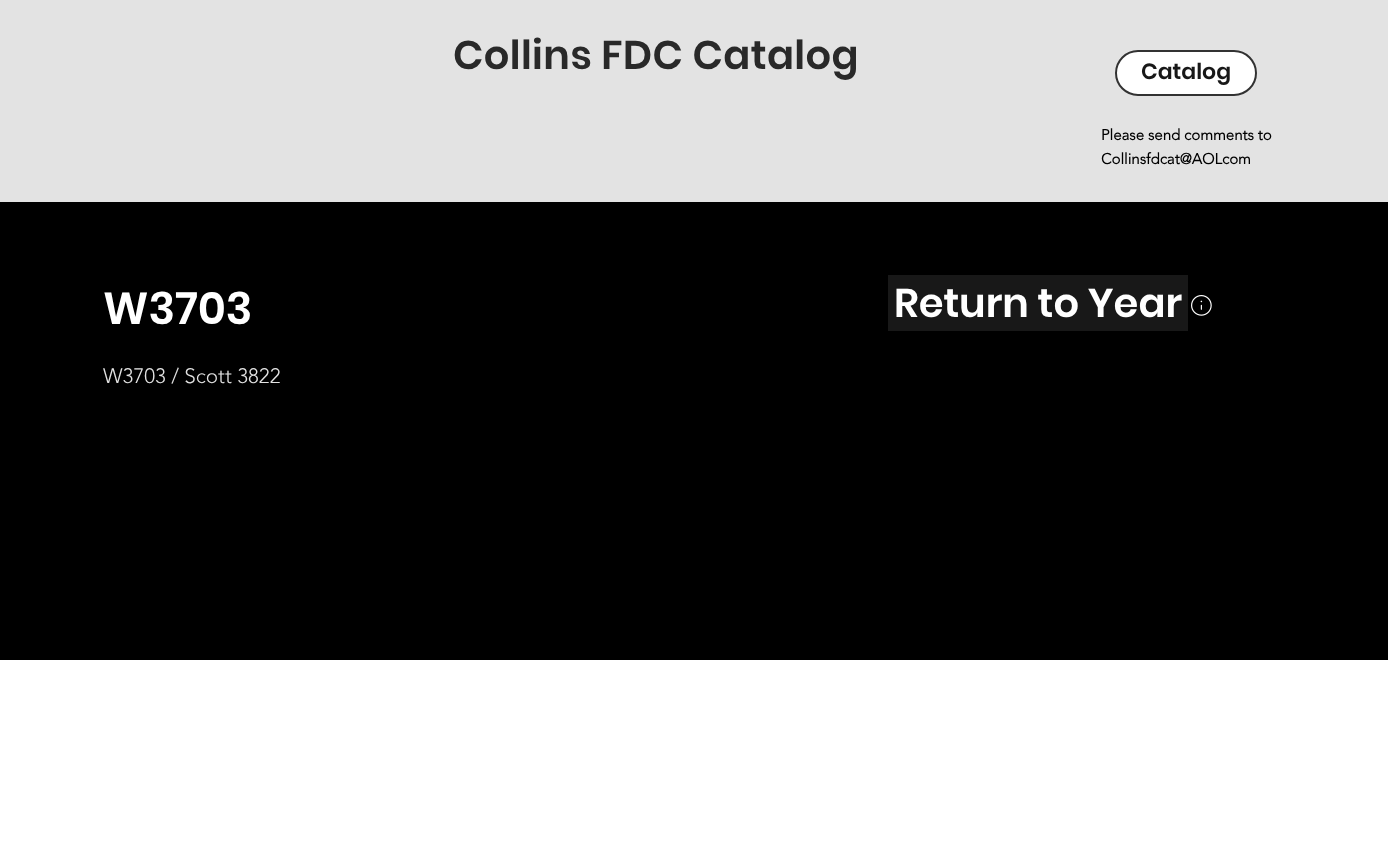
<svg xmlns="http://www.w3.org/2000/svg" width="1388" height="850">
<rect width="100%" height="100%" fill="#000"/>
<rect width="1388" height="202" fill="#e3e3e3"/>
<text x="453" y="69" style="font-family:Poppins;font-size:40px;font-weight:600;letter-spacing:0.4px;fill:#292929">Collins FDC Catalog</text>
<rect x="1116" y="51" width="140" height="44" rx="22" fill="#fff" stroke="#323232" stroke-width="2"/>
<text x="1141" y="79" style="font-family:Poppins;font-size:22px;font-weight:600;fill:#181818">Catalog</text>
<text x="1101" y="140" style="font-family:'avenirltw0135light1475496';font-size:15px;font-weight:bold;fill:#000">Please send comments to</text>
<text x="1101" y="164" style="font-family:'avenirltw0135light1475496';font-size:15px;font-weight:bold;fill:#000">Collinsfdcat@AOLcom</text>
<text x="103" y="324" style="font-family:Poppins;font-size:44.5px;font-weight:600;fill:#fff">W3703</text>
<rect x="888" y="275" width="300" height="56" fill="#181818"/>
<text x="894" y="317" style="font-family:Poppins;font-size:40px;font-weight:600;fill:#fff">Return to Year</text>
<image x="1191" y="295" width="21" height="21" href="media/1.png"/>
<text x="103" y="383" style="font-family:'avenirltw0135light1475496';font-size:20.75px;font-weight:300;fill:#e3e3e3">W3703 / Scott 3822</text>
<rect y="660" width="1388" height="190" fill="#fff"/>
</svg>
